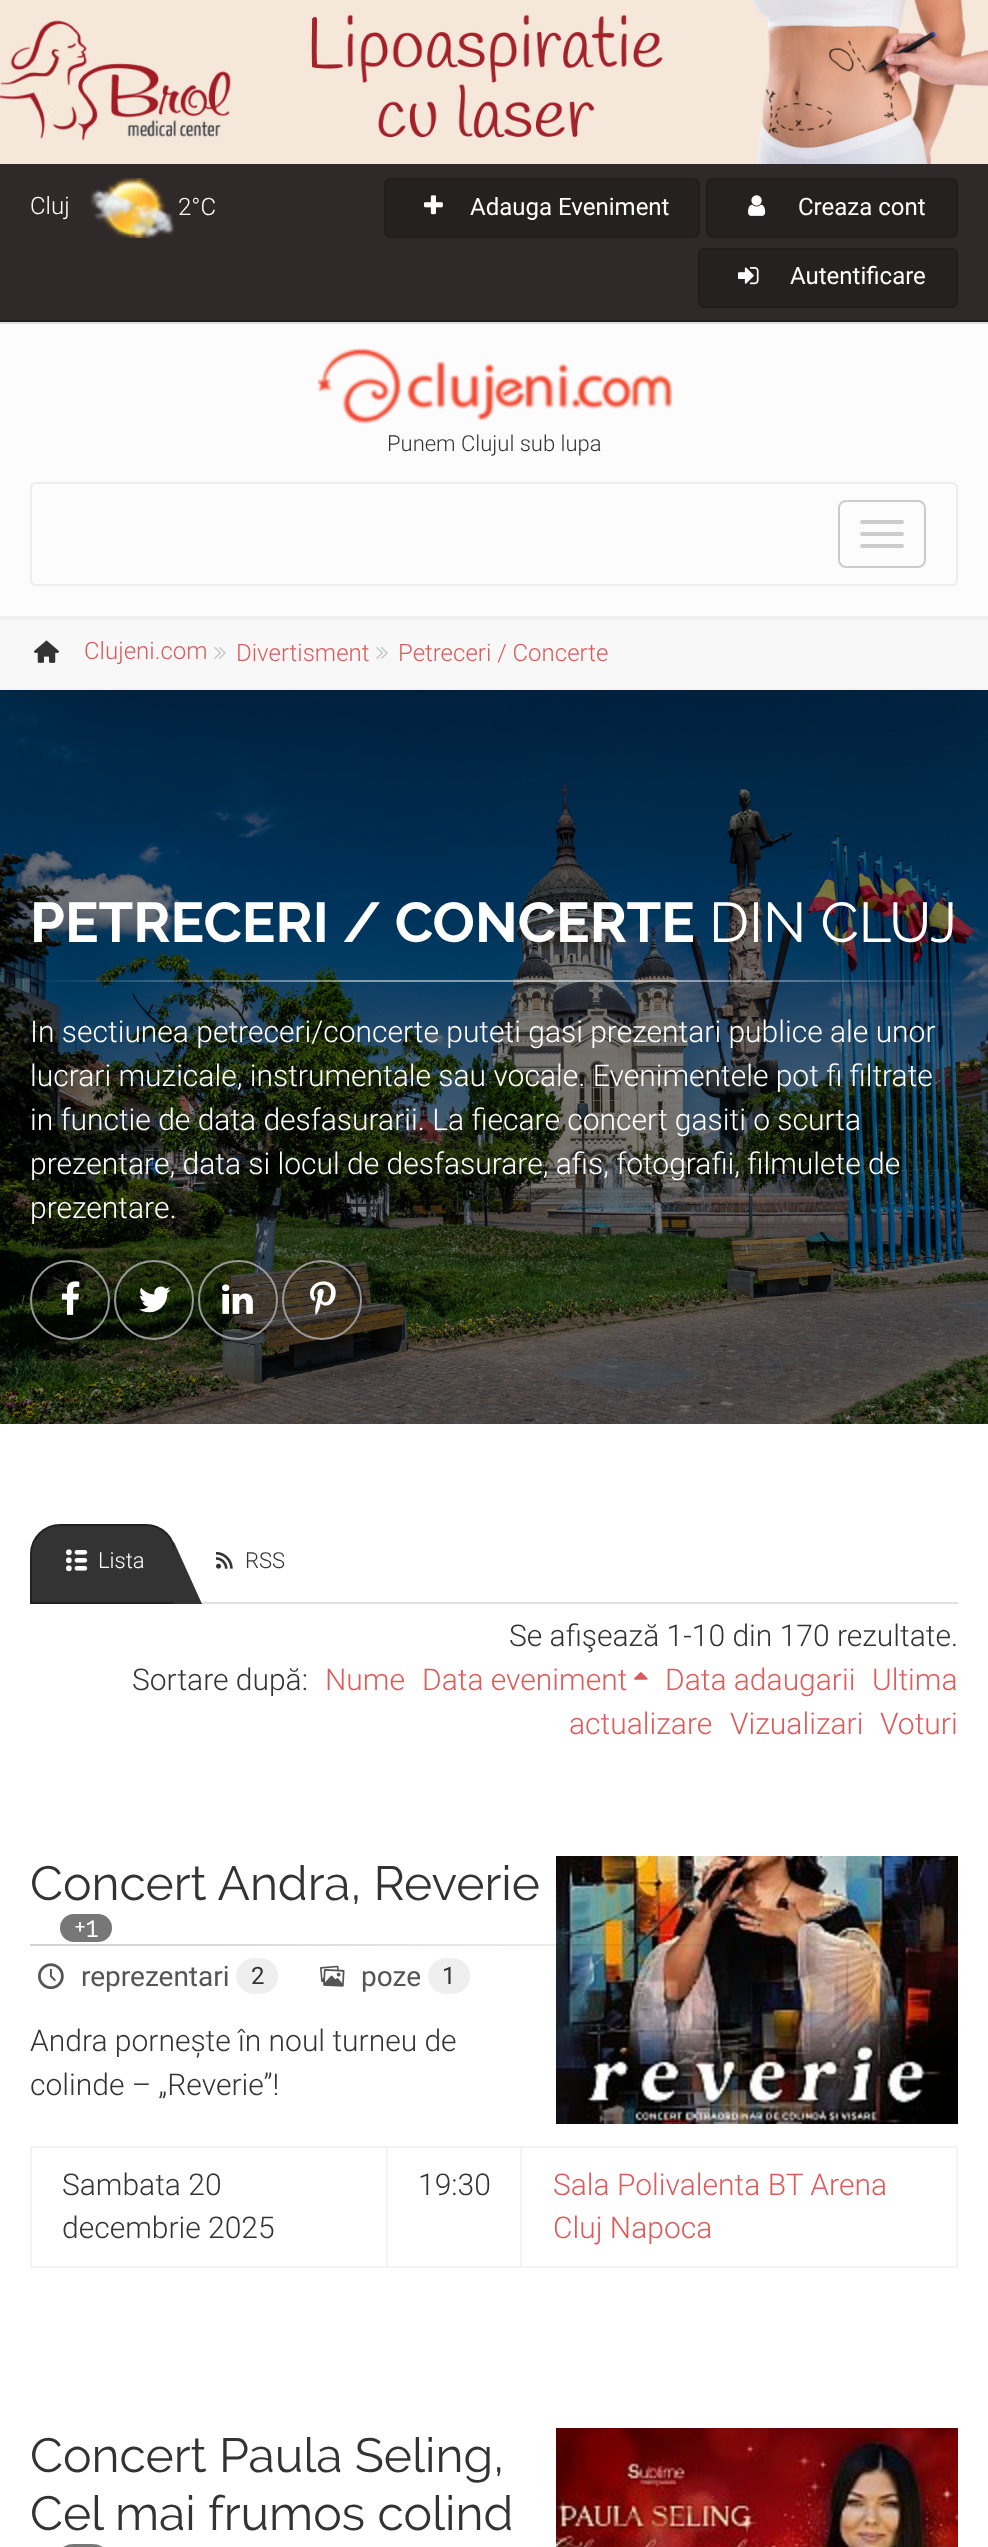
<svg xmlns="http://www.w3.org/2000/svg" width="988" height="2547">
<defs>
<linearGradient id="g1" gradientUnits="userSpaceOnUse" x1="30" y1="1945" x2="958" y2="1945"><stop offset="0" stop-color="#000" stop-opacity="0.18"/><stop offset="0.35" stop-color="#000" stop-opacity="0.12"/><stop offset="0.7" stop-color="#000" stop-opacity="0.05"/><stop offset="1" stop-color="#000" stop-opacity="0"/></linearGradient>
</defs>
<rect width="100%" height="100%" fill="#fff"/>
<image x="0" y="0" width="988" height="164" href="media/1.png"/>
<rect y="164" width="988" height="156" fill="#2f2929"/>
<rect y="320" width="988" height="2" fill="#252020"/>
<text x="30" y="214" style="font-family:Roboto;font-size:24px;font-weight:300;fill:#fff">Cluj</text>
<image x="90" y="178" width="85" height="60" href="media/2.png"/>
<text x="178" y="215" style="font-family:Roboto;font-size:24px;font-weight:300;fill:#fff">2°C</text>
<rect x="385" y="179" width="314" height="58" rx="5" fill="#262121" stroke="#221e1e" stroke-width="2"/>
<image x="424" y="195" width="19" height="20" href="media/3.png"/>
<text x="470" y="215" style="font-family:Roboto;font-size:24px;fill:#fff">Adauga Eveniment</text>
<rect x="707" y="179" width="250" height="58" rx="5" fill="#262121" stroke="#221e1e" stroke-width="2"/>
<image x="748" y="195" width="18" height="21" href="media/4.png"/>
<text x="798" y="215" style="font-family:Roboto;font-size:24px;fill:#fff">Creaza cont</text>
<rect x="699" y="249" width="258" height="58" rx="5" fill="#262121" stroke="#221e1e" stroke-width="2"/>
<image x="738" y="267" width="21" height="18" href="media/5.png"/>
<text x="790" y="284" style="font-family:Roboto;font-size:24px;fill:#fff">Autentificare</text>
<rect y="324" width="988" height="292" fill="#fcfcfc"/>
<rect y="322" width="988" height="2" fill="#ddd"/>
<rect y="616" width="988" height="4" fill="#f1f1f1"/>
<image x="318" y="348" width="354" height="76" href="media/6.png"/>
<text x="387" y="451" style="font-family:Roboto;font-size:22px;font-weight:300;fill:#333">Punem Clujul sub lupa</text>
<rect x="31" y="483" width="926" height="102" rx="5" fill="none" stroke="#ededed" stroke-width="2"/>
<rect x="839" y="501" width="86" height="66" rx="7" fill="none" stroke="#ccc" stroke-width="2"/>
<rect x="860" y="520" width="44" height="4" rx="2" fill="#ccc"/>
<rect x="860" y="532" width="44" height="4" rx="2" fill="#ccc"/>
<rect x="860" y="544" width="44" height="4" rx="2" fill="#ccc"/>
<rect y="620" width="988" height="68" fill="#f8f8f8"/>
<rect y="688" width="988" height="2" fill="#f4f4f4"/>
<image x="34" y="640" width="25" height="23" href="media/7.png"/>
<text x="84" y="659" style="font-family:Roboto;font-size:24px;font-weight:300;fill:#dc5b5b">Clujeni.com</text>
<image x="214" y="647" width="12" height="12" href="media/8.png"/>
<text x="236" y="661" style="font-family:Roboto;font-size:24px;font-weight:300;fill:#dc5b5b">Divertisment</text>
<image x="376" y="647" width="12" height="12" href="media/8.png"/>
<text x="398" y="661" style="font-family:Roboto;font-size:24px;font-weight:300;fill:#dc5b5b">Petreceri / Concerte</text>
<image x="0" y="690" width="988" height="734" href="media/9.png"/>
<text x="30" y="942" style="font-family:Raleway;font-size:56px;font-weight:bold;fill:#fff">PETRECERI / CONCERTE</text>
<text x="709" y="942" style="font-family:Raleway;font-size:56px;fill:#fff">DIN CLUJ</text>
<text x="30" y="1042" style="font-family:Roboto;font-size:30px;font-weight:300;fill:#fff">In sectiunea petreceri/concerte puteti gasi prezentari publice ale unor</text>
<text x="30" y="1086" style="font-family:Roboto;font-size:30px;font-weight:300;fill:#fff">lucrari muzicale, instrumentale sau vocale. Evenimentele pot fi filtrate</text>
<text x="30" y="1130" style="font-family:Roboto;font-size:30px;font-weight:300;fill:#fff">in functie de data desfasurarii. La fiecare concert gasiti o scurta</text>
<text x="30" y="1174" style="font-family:Roboto;font-size:30px;font-weight:300;fill:#fff">prezentare, data si locul de desfasurare, afis, fotografii, filmulete de</text>
<text x="30" y="1218" style="font-family:Roboto;font-size:30px;font-weight:300;fill:#fff">prezentare.</text>
<circle cx="70" cy="1300" r="39" fill="none" stroke="#999" stroke-width="2"/>
<image x="61" y="1281" width="19" height="34" href="media/10.png"/>
<circle cx="154" cy="1300" r="39" fill="none" stroke="#999" stroke-width="2"/>
<image x="139" y="1286" width="32" height="27" href="media/11.png"/>
<circle cx="238" cy="1300" r="39" fill="none" stroke="#999" stroke-width="2"/>
<image x="222" y="1284" width="31" height="30" href="media/12.png"/>
<circle cx="322" cy="1300" r="39" fill="none" stroke="#999" stroke-width="2"/>
<image x="310" y="1281" width="26" height="34" href="media/13.png"/>
<rect x="201" y="1602" width="757" height="2" fill="#e1e1e1"/>
<path d="M60 1525h86c16 0 29 13 29 29v49h-144v-49c0-16 13-29 29-29z" fill="#333" stroke="#222" stroke-width="2"/>
<image x="66" y="1549" width="22" height="23" href="media/14.png"/>
<text x="98" y="1568" style="font-family:Roboto;font-size:22px;font-weight:300;fill:#fff">Lista</text>
<path d="M174 1604v-62l28 62z" fill="#333"/>
<image x="216" y="1551" width="17" height="18" href="media/15.png"/>
<text x="245" y="1568" style="font-family:Roboto;font-size:22px;font-weight:300;fill:#333">RSS</text>
<text x="509" y="1646" style="font-family:Roboto;font-size:30px;font-weight:300;fill:#333">Se afişează 1-10 din 170 rezultate.</text>
<text x="132" y="1690" style="font-family:Roboto;font-size:30px;font-weight:300;fill:#333">Sortare după:</text>
<text x="325" y="1690" style="font-family:Roboto;font-size:30px;font-weight:300;fill:#dc5b5b">Nume</text>
<text x="422" y="1690" style="font-family:Roboto;font-size:30px;font-weight:300;fill:#dc5b5b">Data eveniment</text>
<image x="634" y="1672" width="14" height="8" href="media/16.png"/>
<text x="665" y="1690" style="font-family:Roboto;font-size:30px;font-weight:300;fill:#dc5b5b">Data adaugarii</text>
<text x="872" y="1690" style="font-family:Roboto;font-size:30px;font-weight:300;fill:#dc5b5b">Ultima</text>
<text x="569" y="1734" style="font-family:Roboto;font-size:30px;font-weight:300;fill:#dc5b5b">actualizare</text>
<text x="730" y="1734" style="font-family:Roboto;font-size:30px;font-weight:300;fill:#dc5b5b">Vizualizari</text>
<text x="880" y="1734" style="font-family:Roboto;font-size:30px;font-weight:300;fill:#dc5b5b">Voturi</text>
<text x="30" y="1900" style="font-family:Raleway;font-size:48px;fill:#333">Concert Andra, Reverie</text>
<rect x="60" y="1914" width="52" height="28" rx="14" fill="#777"/>
<text x="74" y="1937" style="font-family:Raleway;font-size:29px;fill:#fff">+1</text>
<image x="556" y="1856" width="402" height="268" href="media/17.png"/>
<rect x="30" y="1944" width="808" height="2" fill="url(#g1)"/>
<image x="38" y="1963" width="26" height="27" href="media/18.png"/>
<text x="81" y="1986" style="font-family:Roboto;font-size:28px;fill:#555">reprezentari</text>
<rect x="236" y="1958" width="42" height="36" rx="18" fill="#efefef"/>
<text x="251" y="1984" style="font-family:Roboto;font-size:24px;fill:#333">2</text>
<image x="320" y="1965" width="25" height="22" href="media/19.png"/>
<text x="361" y="1986" style="font-family:Roboto;font-size:28px;fill:#555">poze</text>
<rect x="428" y="1958" width="42" height="36" rx="18" fill="#efefef"/>
<text x="442" y="1984" style="font-family:Roboto;font-size:24px;fill:#333">1</text>
<text x="30" y="2051" style="font-family:Roboto;font-size:30px;font-weight:300;fill:#333">Andra pornește în noul turneu de</text>
<text x="30" y="2095" style="font-family:Roboto;font-size:30px;font-weight:300;fill:#333">colinde – „Reverie”!</text>
<rect x="520" y="2146" width="438" height="2" fill="#f3f3f3"/>
<rect x="956" y="2146" width="2" height="122" fill="#f3f3f3"/>
<rect x="520" y="2266" width="438" height="2" fill="#f3f3f3"/>
<rect x="520" y="2146" width="2" height="122" fill="#f3f3f3"/>
<rect x="386" y="2146" width="136" height="2" fill="#f3f3f3"/>
<rect x="386" y="2266" width="136" height="2" fill="#f3f3f3"/>
<rect x="386" y="2146" width="2" height="122" fill="#f3f3f3"/>
<rect x="30" y="2146" width="358" height="2" fill="#f3f3f3"/>
<rect x="30" y="2266" width="358" height="2" fill="#f3f3f3"/>
<rect x="30" y="2146" width="2" height="122" fill="#f3f3f3"/>
<text x="62" y="2195" style="font-family:Roboto;font-size:30px;font-weight:300;fill:#333">Sambata 20</text>
<text x="62" y="2238" style="font-family:Roboto;font-size:30px;font-weight:300;fill:#333">decembrie 2025</text>
<text x="418" y="2195" style="font-family:Roboto;font-size:30px;font-weight:300;fill:#333">19:30</text>
<text x="553" y="2195" style="font-family:Roboto;font-size:30px;font-weight:300;fill:#dc5b5b">Sala Polivalenta BT Arena</text>
<text x="553" y="2238" style="font-family:Roboto;font-size:30px;font-weight:300;fill:#dc5b5b">Cluj Napoca</text>
<text x="30" y="2472" style="font-family:Raleway;font-size:48px;fill:#333">Concert Paula Seling,</text>
<text x="30" y="2530" style="font-family:Raleway;font-size:48px;fill:#333">Cel mai frumos colind</text>
<rect x="60" y="2544" width="46" height="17" rx="14" fill="#777"/>
<image x="556" y="2428" width="402" height="119" href="media/20.png"/>
</svg>
